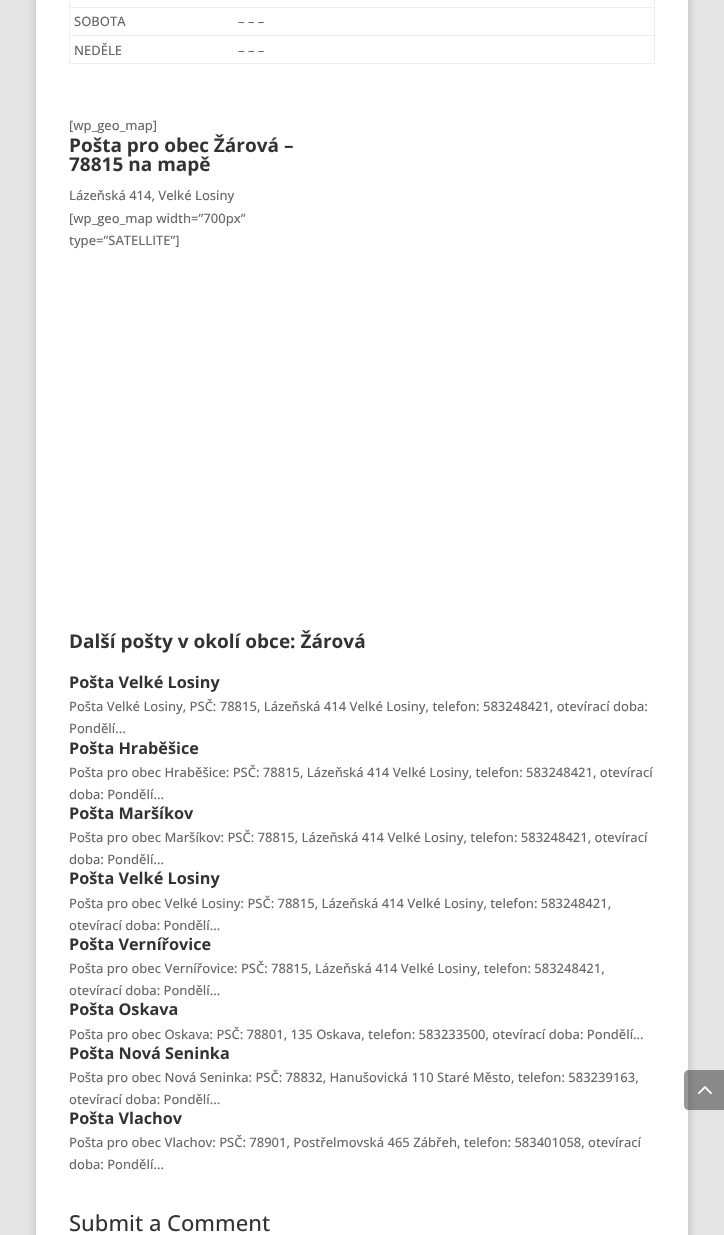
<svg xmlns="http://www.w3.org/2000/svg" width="724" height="1235">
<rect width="100%" height="100%" fill="#e5e5e5"/>
<rect x="36" y="-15" width="652" height="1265" fill="#00000033" filter="blur(5px)"/>
<rect x="36" width="652" height="1235" fill="#fff"/>
<rect x="654" width="1" height="64" fill="#eee"/>
<rect x="69" y="63" width="586" height="1" fill="#eee"/>
<rect x="69" width="1" height="64" fill="#eee"/>
<text x="74" y="26" style="font-family:Open Sans;font-size:13px;font-weight:500;fill:#666">SOBOTA</text>
<rect x="69" y="7" width="586" height="1" fill="#eee"/>
<text x="238" y="26" style="font-family:Open Sans;font-size:13px;font-weight:500;fill:#666">– – –</text>
<text x="74" y="55" style="font-family:Open Sans;font-size:13px;font-weight:500;fill:#666">NEDĚLE</text>
<rect x="69" y="35" width="586" height="1" fill="#eee"/>
<text x="238" y="55" style="font-family:Open Sans;font-size:13px;font-weight:500;fill:#666">– – –</text>
<text x="69" y="130" style="font-family:Open Sans;font-size:13px;font-weight:500;fill:#666">[wp_geo_map]</text>
<text x="69" y="152" style="font-family:Open Sans;font-size:19px;font-weight:bold;fill:#333">Pošta pro obec Žárová –</text>
<text x="69" y="171" style="font-family:Open Sans;font-size:19px;font-weight:bold;fill:#333">78815 na mapě</text>
<text x="69" y="200" style="font-family:Open Sans;font-size:13px;font-weight:500;fill:#666">Lázeňská 414, Velké Losiny</text>
<text x="69" y="223" style="font-family:Open Sans;font-size:13px;font-weight:500;fill:#666">[wp_geo_map width=”700px”</text>
<text x="69" y="245" style="font-family:Open Sans;font-size:13px;font-weight:500;fill:#666">type=”SATELLITE”]</text>
<text x="69" y="648" style="font-family:Open Sans;font-size:19px;font-weight:bold;fill:#333">Další pošty v okolí obce: Žárová</text>
<text x="69" y="688" style="font-family:Open Sans;font-size:16.25px;font-weight:bold;fill:#333">Pošta Velké Losiny</text>
<text x="69" y="711" style="font-family:Open Sans;font-size:13px;font-weight:500;fill:#666">Pošta Velké Losiny, PSČ: 78815, Lázeňská 414 Velké Losiny, telefon: 583248421, otevírací doba:</text>
<text x="69" y="733" style="font-family:Open Sans;font-size:13px;font-weight:500;fill:#666">Pondělí...</text>
<text x="69" y="754" style="font-family:Open Sans;font-size:16.25px;font-weight:bold;fill:#333">Pošta Hraběšice</text>
<text x="69" y="777" style="font-family:Open Sans;font-size:13px;font-weight:500;fill:#666">Pošta pro obec Hraběšice: PSČ: 78815, Lázeňská 414 Velké Losiny, telefon: 583248421, otevírací</text>
<text x="69" y="799" style="font-family:Open Sans;font-size:13px;font-weight:500;fill:#666">doba: Pondělí...</text>
<text x="69" y="819" style="font-family:Open Sans;font-size:16.25px;font-weight:bold;fill:#333">Pošta Maršíkov</text>
<text x="69" y="842" style="font-family:Open Sans;font-size:13px;font-weight:500;fill:#666">Pošta pro obec Maršíkov: PSČ: 78815, Lázeňská 414 Velké Losiny, telefon: 583248421, otevírací</text>
<text x="69" y="864" style="font-family:Open Sans;font-size:13px;font-weight:500;fill:#666">doba: Pondělí...</text>
<text x="69" y="884" style="font-family:Open Sans;font-size:16.25px;font-weight:bold;fill:#333">Pošta Velké Losiny</text>
<text x="69" y="908" style="font-family:Open Sans;font-size:13px;font-weight:500;fill:#666">Pošta pro obec Velké Losiny: PSČ: 78815, Lázeňská 414 Velké Losiny, telefon: 583248421,</text>
<text x="69" y="930" style="font-family:Open Sans;font-size:13px;font-weight:500;fill:#666">otevírací doba: Pondělí...</text>
<text x="69" y="950" style="font-family:Open Sans;font-size:16.25px;font-weight:bold;fill:#333">Pošta Vernířovice</text>
<text x="69" y="973" style="font-family:Open Sans;font-size:13px;font-weight:500;fill:#666">Pošta pro obec Vernířovice: PSČ: 78815, Lázeňská 414 Velké Losiny, telefon: 583248421,</text>
<text x="69" y="995" style="font-family:Open Sans;font-size:13px;font-weight:500;fill:#666">otevírací doba: Pondělí...</text>
<text x="69" y="1015" style="font-family:Open Sans;font-size:16.25px;font-weight:bold;fill:#333">Pošta Oskava</text>
<text x="69" y="1039" style="font-family:Open Sans;font-size:13px;font-weight:500;fill:#666">Pošta pro obec Oskava: PSČ: 78801, 135 Oskava, telefon: 583233500, otevírací doba: Pondělí...</text>
<text x="69" y="1059" style="font-family:Open Sans;font-size:16.25px;font-weight:bold;fill:#333">Pošta Nová Seninka</text>
<text x="69" y="1082" style="font-family:Open Sans;font-size:13px;font-weight:500;fill:#666">Pošta pro obec Nová Seninka: PSČ: 78832, Hanušovická 110 Staré Město, telefon: 583239163,</text>
<text x="69" y="1104" style="font-family:Open Sans;font-size:13px;font-weight:500;fill:#666">otevírací doba: Pondělí...</text>
<text x="69" y="1124" style="font-family:Open Sans;font-size:16.25px;font-weight:bold;fill:#333">Pošta Vlachov</text>
<text x="69" y="1147" style="font-family:Open Sans;font-size:13px;font-weight:500;fill:#666">Pošta pro obec Vlachov: PSČ: 78901, Postřelmovská 465 Zábřeh, telefon: 583401058, otevírací</text>
<text x="69" y="1169" style="font-family:Open Sans;font-size:13px;font-weight:500;fill:#666">doba: Pondělí...</text>
<text x="69" y="1231" style="font-family:Open Sans;font-size:22px;font-weight:500;fill:#333">Submit a Comment</text>
<path d="M689 1070h35v40h-35c-3 0-5-2-5-5v-30c0-3 2-5 5-5z" fill="#00000066"/>
<image x="697" y="1086" width="15" height="8" href="media/1.png"/>
</svg>
